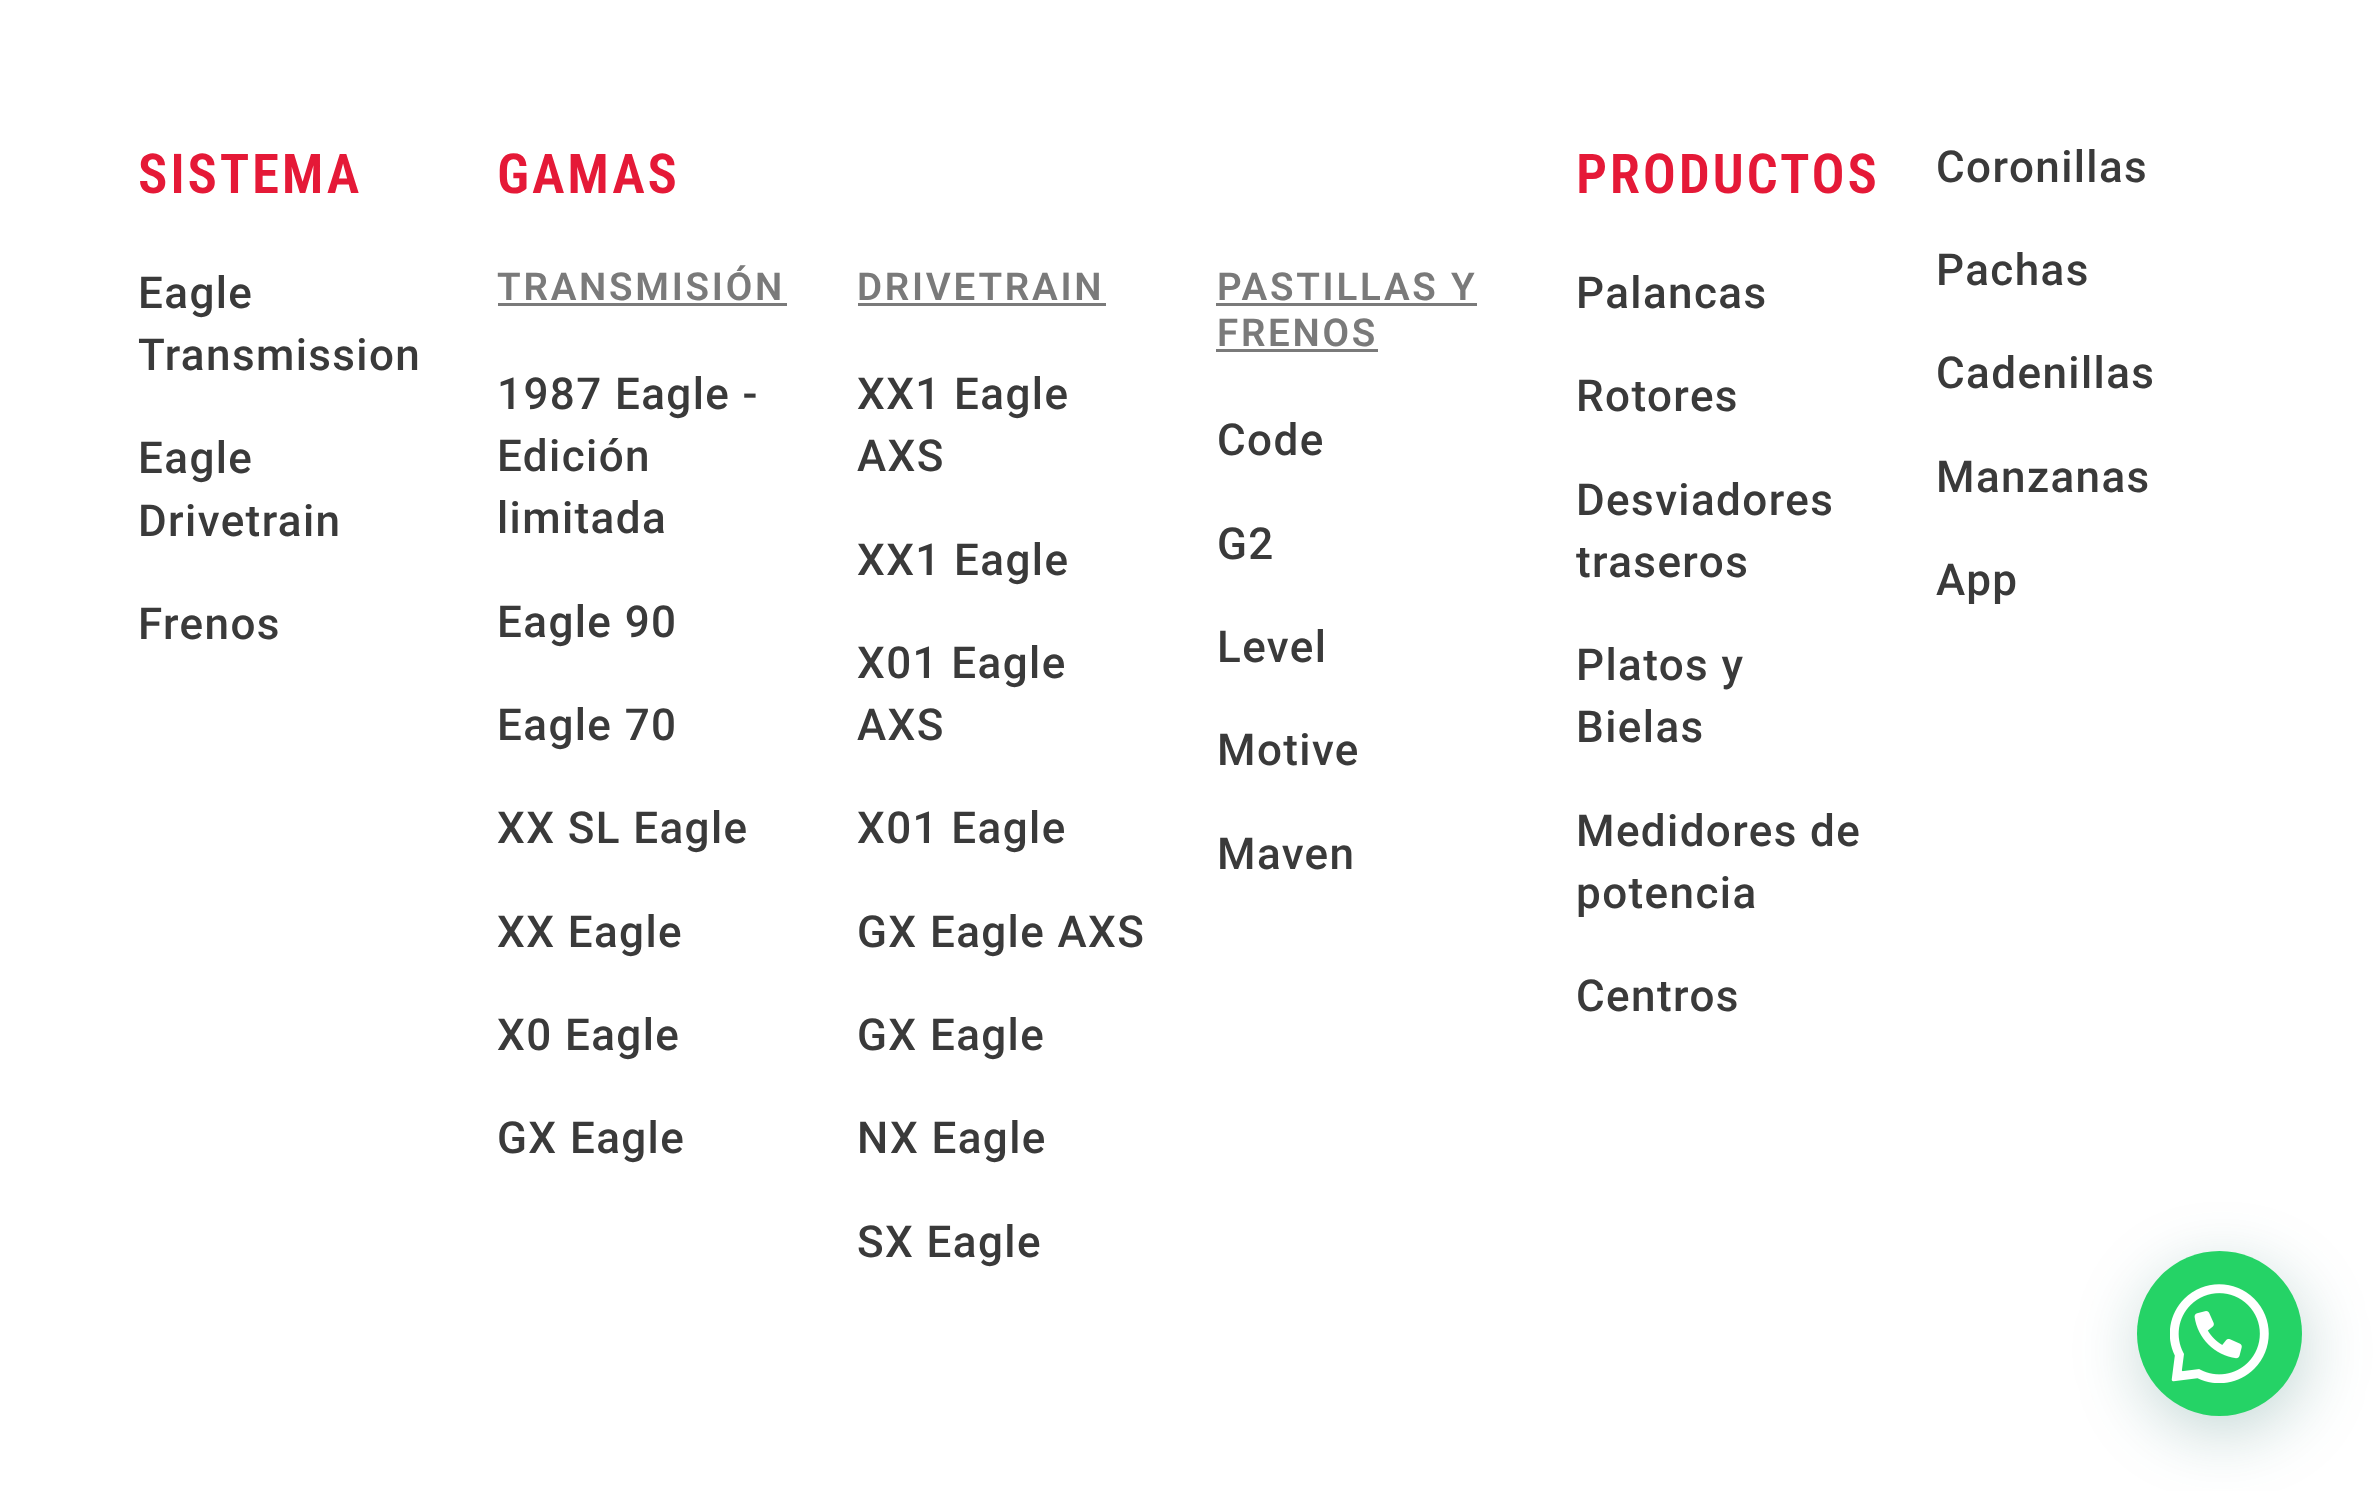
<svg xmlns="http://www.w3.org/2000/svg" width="2378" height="1491">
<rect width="100%" height="100%" fill="#fff"/>
<text x="138" y="193" style="font-family:Roboto Condensed;font-size:55px;font-weight:600;letter-spacing:2.75px;fill:#e51937">SISTEMA</text>
<text x="138" y="308" style="font-family:Roboto;font-size:44px;font-weight:500;letter-spacing:1.4px;fill:#3a3a3a">Eagle</text>
<text x="138" y="370" style="font-family:Roboto;font-size:44px;font-weight:500;letter-spacing:1.4px;fill:#3a3a3a">Transmission</text>
<text x="138" y="473" style="font-family:Roboto;font-size:44px;font-weight:500;letter-spacing:1.4px;fill:#3a3a3a">Eagle</text>
<text x="138" y="536" style="font-family:Roboto;font-size:44px;font-weight:500;letter-spacing:1.4px;fill:#3a3a3a">Drivetrain</text>
<text x="138" y="639" style="font-family:Roboto;font-size:44px;font-weight:500;letter-spacing:1.4px;fill:#3a3a3a">Frenos</text>
<text x="497" y="193" style="font-family:Roboto Condensed;font-size:55px;font-weight:600;letter-spacing:2.75px;fill:#e51937">GAMAS</text>
<text x="497" y="300" style="font-family:Roboto;font-size:38.5px;font-weight:600;letter-spacing:2.75px;fill:#7a7a7a">TRANSMISIÓN</text>
<rect x="498" y="303" width="289" height="3" fill="#7a7a7a"/>
<text x="497" y="409" style="font-family:Roboto;font-size:44px;font-weight:500;letter-spacing:1.4px;fill:#3a3a3a">1987 Eagle -</text>
<text x="497" y="471" style="font-family:Roboto;font-size:44px;font-weight:500;letter-spacing:1.4px;fill:#3a3a3a">Edición</text>
<text x="497" y="533" style="font-family:Roboto;font-size:44px;font-weight:500;letter-spacing:1.4px;fill:#3a3a3a">limitada</text>
<text x="497" y="637" style="font-family:Roboto;font-size:44px;font-weight:500;letter-spacing:1.4px;fill:#3a3a3a">Eagle 90</text>
<text x="497" y="740" style="font-family:Roboto;font-size:44px;font-weight:500;letter-spacing:1.4px;fill:#3a3a3a">Eagle 70</text>
<text x="497" y="843" style="font-family:Roboto;font-size:44px;font-weight:500;letter-spacing:1.4px;fill:#3a3a3a">XX SL Eagle</text>
<text x="497" y="947" style="font-family:Roboto;font-size:44px;font-weight:500;letter-spacing:1.4px;fill:#3a3a3a">XX Eagle</text>
<text x="497" y="1050" style="font-family:Roboto;font-size:44px;font-weight:500;letter-spacing:1.4px;fill:#3a3a3a">X0 Eagle</text>
<text x="497" y="1153" style="font-family:Roboto;font-size:44px;font-weight:500;letter-spacing:1.4px;fill:#3a3a3a">GX Eagle</text>
<text x="857" y="300" style="font-family:Roboto;font-size:38.5px;font-weight:600;letter-spacing:2.75px;fill:#7a7a7a">DRIVETRAIN</text>
<rect x="858" y="303" width="248" height="3" fill="#7a7a7a"/>
<text x="857" y="409" style="font-family:Roboto;font-size:44px;font-weight:500;letter-spacing:1.4px;fill:#3a3a3a">XX1 Eagle</text>
<text x="857" y="471" style="font-family:Roboto;font-size:44px;font-weight:500;letter-spacing:1.4px;fill:#3a3a3a">AXS</text>
<text x="857" y="575" style="font-family:Roboto;font-size:44px;font-weight:500;letter-spacing:1.4px;fill:#3a3a3a">XX1 Eagle</text>
<text x="857" y="678" style="font-family:Roboto;font-size:44px;font-weight:500;letter-spacing:1.4px;fill:#3a3a3a">X01 Eagle</text>
<text x="857" y="740" style="font-family:Roboto;font-size:44px;font-weight:500;letter-spacing:1.4px;fill:#3a3a3a">AXS</text>
<text x="857" y="843" style="font-family:Roboto;font-size:44px;font-weight:500;letter-spacing:1.4px;fill:#3a3a3a">X01 Eagle</text>
<text x="857" y="947" style="font-family:Roboto;font-size:44px;font-weight:500;letter-spacing:1.4px;fill:#3a3a3a">GX Eagle AXS</text>
<text x="857" y="1050" style="font-family:Roboto;font-size:44px;font-weight:500;letter-spacing:1.4px;fill:#3a3a3a">GX Eagle</text>
<text x="857" y="1153" style="font-family:Roboto;font-size:44px;font-weight:500;letter-spacing:1.4px;fill:#3a3a3a">NX Eagle</text>
<text x="857" y="1257" style="font-family:Roboto;font-size:44px;font-weight:500;letter-spacing:1.4px;fill:#3a3a3a">SX Eagle</text>
<text x="1217" y="300" style="font-family:Roboto;font-size:38.5px;font-weight:600;letter-spacing:2.75px;fill:#7a7a7a">PASTILLAS Y</text>
<rect x="1216" y="303" width="261" height="3" fill="#7a7a7a"/>
<text x="1217" y="346" style="font-family:Roboto;font-size:38.5px;font-weight:600;letter-spacing:2.75px;fill:#7a7a7a">FRENOS</text>
<rect x="1216" y="349" width="162" height="3" fill="#7a7a7a"/>
<text x="1217" y="455" style="font-family:Roboto;font-size:44px;font-weight:500;letter-spacing:1.4px;fill:#3a3a3a">Code</text>
<text x="1217" y="559" style="font-family:Roboto;font-size:44px;font-weight:500;letter-spacing:1.4px;fill:#3a3a3a">G2</text>
<text x="1217" y="662" style="font-family:Roboto;font-size:44px;font-weight:500;letter-spacing:1.4px;fill:#3a3a3a">Level</text>
<text x="1217" y="765" style="font-family:Roboto;font-size:44px;font-weight:500;letter-spacing:1.4px;fill:#3a3a3a">Motive</text>
<text x="1217" y="869" style="font-family:Roboto;font-size:44px;font-weight:500;letter-spacing:1.4px;fill:#3a3a3a">Maven</text>
<text x="1576" y="193" style="font-family:Roboto Condensed;font-size:55px;font-weight:600;letter-spacing:2.75px;fill:#e51937">PRODUCTOS</text>
<text x="1576" y="308" style="font-family:Roboto;font-size:44px;font-weight:500;letter-spacing:1.4px;fill:#3a3a3a">Palancas</text>
<text x="1576" y="411" style="font-family:Roboto;font-size:44px;font-weight:500;letter-spacing:1.4px;fill:#3a3a3a">Rotores</text>
<text x="1576" y="515" style="font-family:Roboto;font-size:44px;font-weight:500;letter-spacing:1.4px;fill:#3a3a3a">Desviadores</text>
<text x="1576" y="577" style="font-family:Roboto;font-size:44px;font-weight:500;letter-spacing:1.4px;fill:#3a3a3a">traseros</text>
<text x="1576" y="680" style="font-family:Roboto;font-size:44px;font-weight:500;letter-spacing:1.4px;fill:#3a3a3a">Platos y</text>
<text x="1576" y="742" style="font-family:Roboto;font-size:44px;font-weight:500;letter-spacing:1.4px;fill:#3a3a3a">Bielas</text>
<text x="1576" y="846" style="font-family:Roboto;font-size:44px;font-weight:500;letter-spacing:1.4px;fill:#3a3a3a">Medidores de</text>
<text x="1576" y="908" style="font-family:Roboto;font-size:44px;font-weight:500;letter-spacing:1.4px;fill:#3a3a3a">potencia</text>
<text x="1576" y="1011" style="font-family:Roboto;font-size:44px;font-weight:500;letter-spacing:1.4px;fill:#3a3a3a">Centros</text>
<text x="1936" y="182" style="font-family:Roboto;font-size:44px;font-weight:500;letter-spacing:1.4px;fill:#3a3a3a">Coronillas</text>
<text x="1936" y="285" style="font-family:Roboto;font-size:44px;font-weight:500;letter-spacing:1.4px;fill:#3a3a3a">Pachas</text>
<text x="1936" y="388" style="font-family:Roboto;font-size:44px;font-weight:500;letter-spacing:1.4px;fill:#3a3a3a">Cadenillas</text>
<text x="1936" y="492" style="font-family:Roboto;font-size:44px;font-weight:500;letter-spacing:1.4px;fill:#3a3a3a">Manzanas</text>
<text x="1936" y="595" style="font-family:Roboto;font-size:44px;font-weight:500;letter-spacing:1.4px;fill:#3a3a3a">App</text>
<rect x="2140" y="1268" width="165" height="165" rx="82.5" fill="#075e543d" filter="blur(33px)"/>
<circle cx="2219.5" cy="1333.5" r="82.5" fill="#25d366"/>
<image x="2170" y="1284" width="99" height="99" href="media/1.png"/>
</svg>
